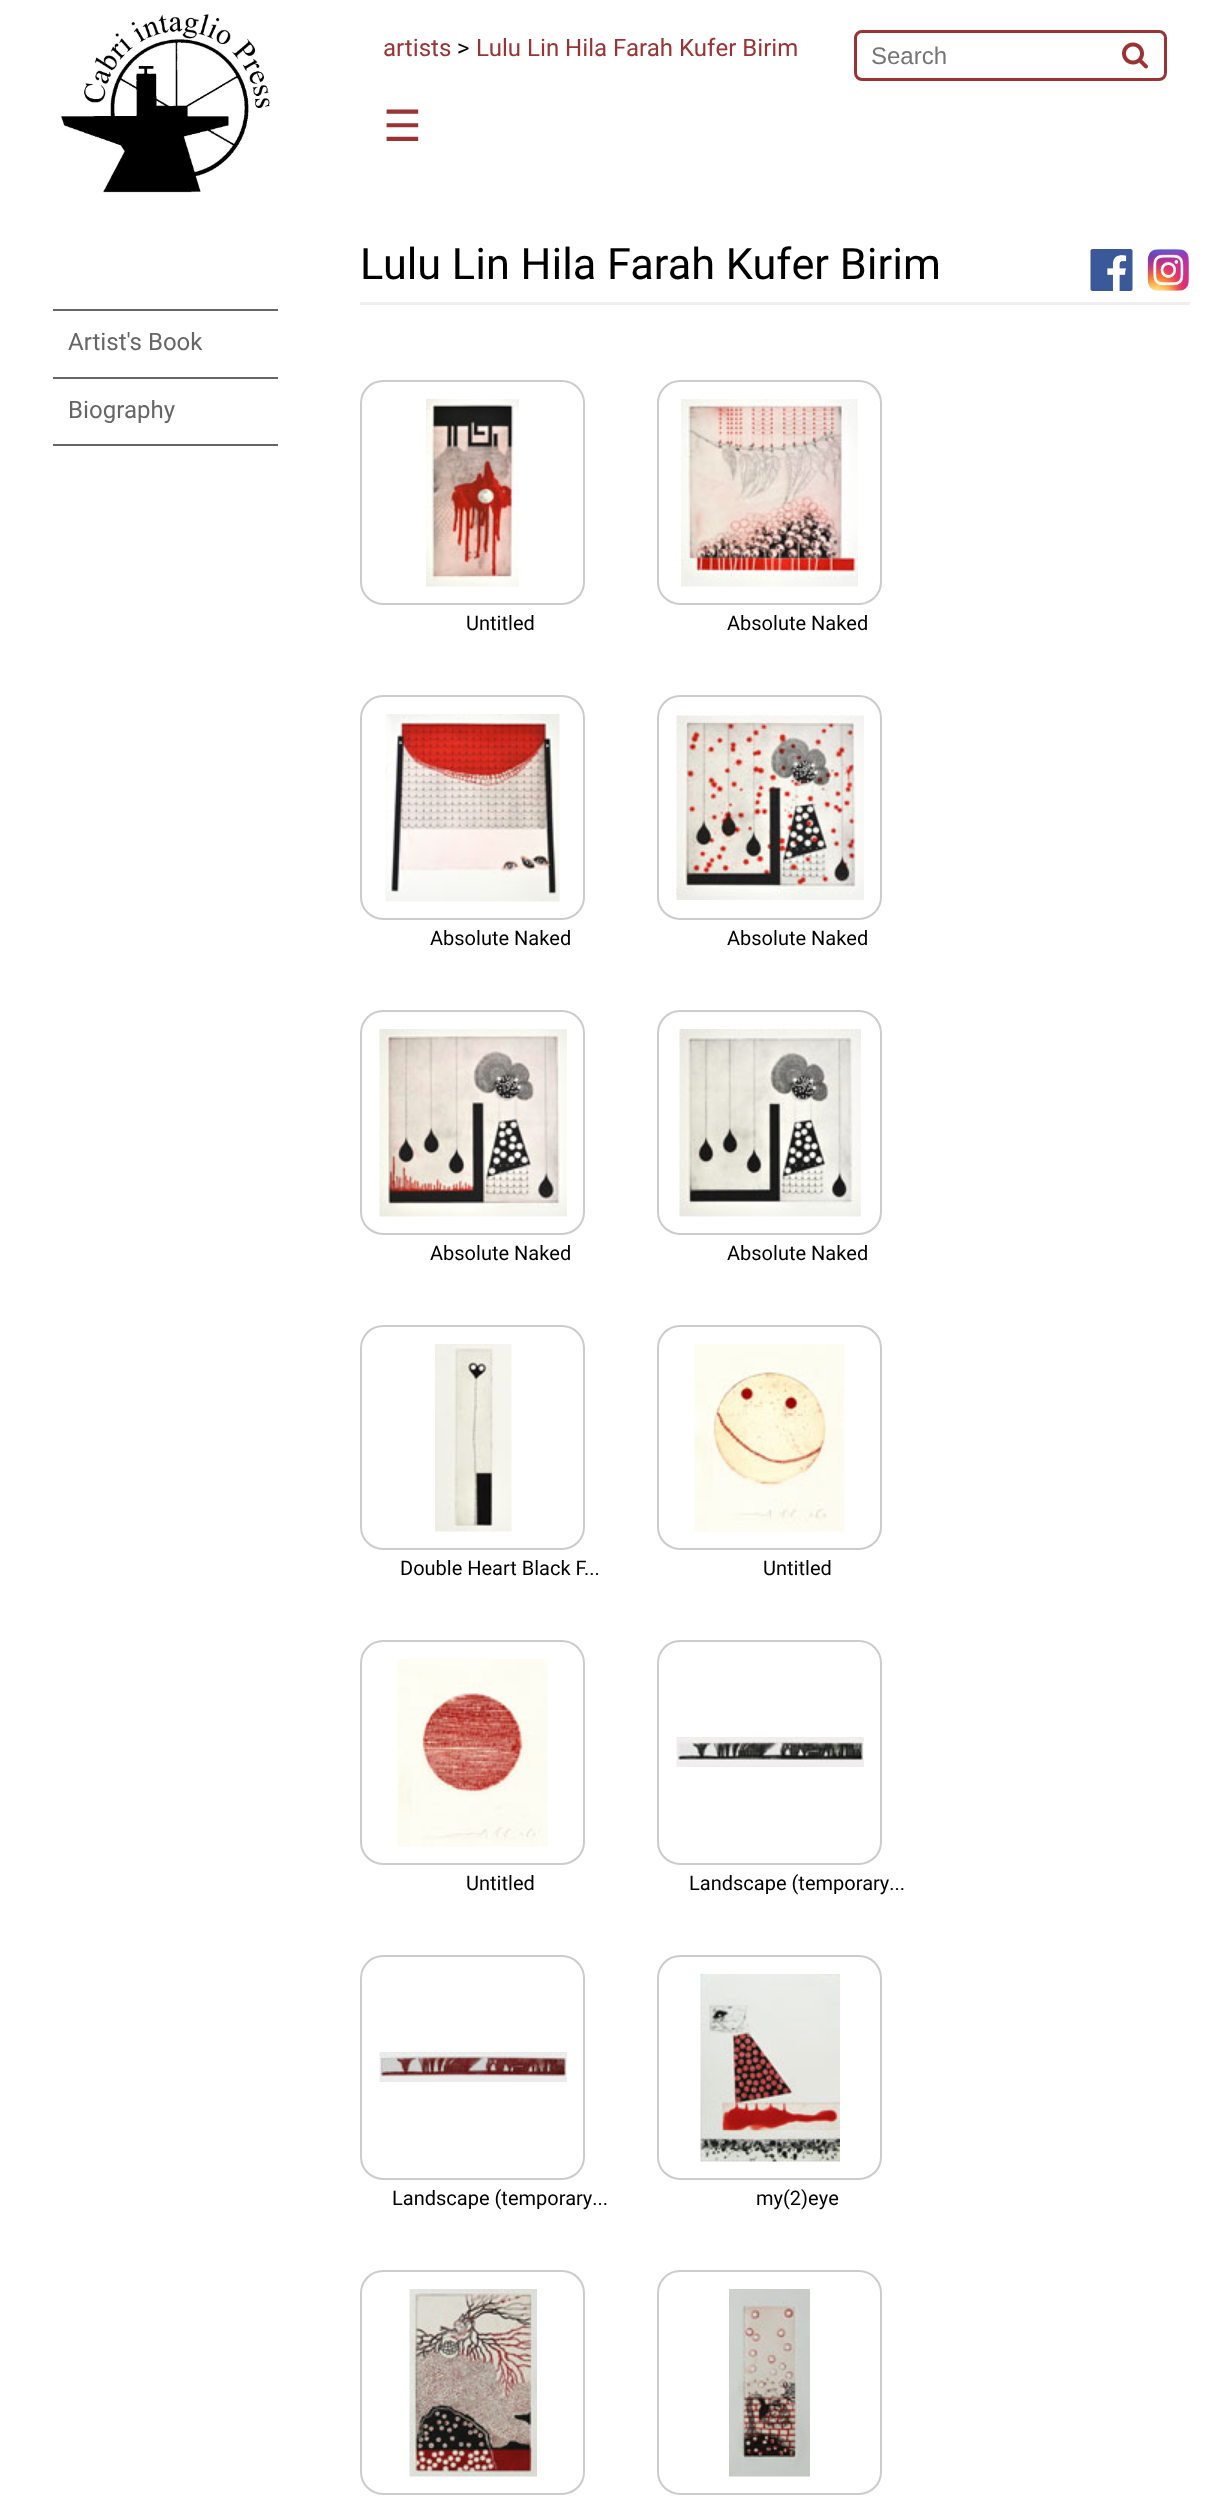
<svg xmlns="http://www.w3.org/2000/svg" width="1219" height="2510">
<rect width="100%" height="100%" fill="#fff"/>
<image x="61" y="14" width="209" height="179" href="media/1.png"/>
<text x="383" y="56" style="font-family:Heebo;font-size:24px;fill:#9a3334">artists</text>
<text x="457" y="56" style="font-family:Heebo;font-size:24px;fill:#000">&gt;</text>
<text x="476" y="56" style="font-family:Heebo;font-size:24px;fill:#9a3334">Lulu Lin Hila Farah Kufer Birim</text>
<rect x="855.5" y="31.5" width="310" height="48" rx="6.5" fill="none" stroke="#9a3334" stroke-width="3"/>
<text x="871" y="64" style="font-family:Liberation Sans;font-size:24px;fill:#757575">Search</text>
<image x="1122" y="42" width="26" height="27" href="media/2.png"/>
<text x="383" y="141" style="font-family:DejaVu Sans;font-size:43.25px;fill:#9a3334">☰</text>
<rect x="53" y="309" width="225" height="2" fill="#666"/>
<text x="68" y="350" style="font-family:Heebo;font-size:24px;fill:#666">Artist's Book</text>
<rect x="53" y="377" width="225" height="2" fill="#666"/>
<rect x="53" y="444" width="225" height="2" fill="#666"/>
<text x="68" y="418" style="font-family:Heebo;font-size:24px;fill:#666">Biography</text>
<text x="360" y="279" style="font-family:Heebo;font-size:43.25px;fill:#000">Lulu Lin Hila Farah Kufer Birim</text>
<image x="1090" y="249" width="43" height="42" href="media/3.png"/>
<image x="1147" y="249" width="42" height="42" href="media/4.png"/>
<rect x="360" y="302" width="830" height="3" fill="#efefef"/>
<rect x="361" y="381" width="223" height="223" rx="22" fill="none" stroke="#ccc" stroke-width="2"/>
<image x="426" y="399" width="93" height="188" href="media/5.png"/>
<text x="466" y="630" style="font-family:Heebo;font-size:20px;fill:#000">Untitled</text>
<rect x="658" y="381" width="223" height="223" rx="22" fill="none" stroke="#ccc" stroke-width="2"/>
<image x="681" y="399" width="177" height="188" href="media/6.png"/>
<text x="727" y="630" style="font-family:Heebo;font-size:20px;fill:#000">Absolute Naked</text>
<rect x="361" y="696" width="223" height="223" rx="22" fill="none" stroke="#ccc" stroke-width="2"/>
<image x="385" y="714" width="175" height="188" href="media/7.png"/>
<text x="430" y="945" style="font-family:Heebo;font-size:20px;fill:#000">Absolute Naked</text>
<rect x="658" y="696" width="223" height="223" rx="22" fill="none" stroke="#ccc" stroke-width="2"/>
<image x="676" y="715" width="188" height="185" href="media/8.png"/>
<text x="727" y="945" style="font-family:Heebo;font-size:20px;fill:#000">Absolute Naked</text>
<rect x="361" y="1011" width="223" height="223" rx="22" fill="none" stroke="#ccc" stroke-width="2"/>
<image x="379" y="1029" width="188" height="188" href="media/9.png"/>
<text x="430" y="1260" style="font-family:Heebo;font-size:20px;fill:#000">Absolute Naked</text>
<rect x="658" y="1011" width="223" height="223" rx="22" fill="none" stroke="#ccc" stroke-width="2"/>
<image x="679" y="1029" width="182" height="188" href="media/10.png"/>
<text x="727" y="1260" style="font-family:Heebo;font-size:20px;fill:#000">Absolute Naked</text>
<rect x="361" y="1326" width="223" height="223" rx="22" fill="none" stroke="#ccc" stroke-width="2"/>
<image x="435" y="1344" width="77" height="188" href="media/11.png"/>
<text x="400" y="1575" style="font-family:Heebo;font-size:20px;fill:#000">Double Heart Black F...</text>
<rect x="658" y="1326" width="223" height="223" rx="22" fill="none" stroke="#ccc" stroke-width="2"/>
<image x="694" y="1344" width="151" height="188" href="media/12.png"/>
<text x="763" y="1575" style="font-family:Heebo;font-size:20px;fill:#000">Untitled</text>
<rect x="361" y="1641" width="223" height="223" rx="22" fill="none" stroke="#ccc" stroke-width="2"/>
<image x="397" y="1659" width="151" height="188" href="media/13.png"/>
<text x="466" y="1890" style="font-family:Heebo;font-size:20px;fill:#000">Untitled</text>
<rect x="658" y="1641" width="223" height="223" rx="22" fill="none" stroke="#ccc" stroke-width="2"/>
<image x="676" y="1737" width="188" height="30" href="media/14.png"/>
<text x="689" y="1890" style="font-family:Heebo;font-size:20px;fill:#000">Landscape (temporary...</text>
<rect x="361" y="1956" width="223" height="223" rx="22" fill="none" stroke="#ccc" stroke-width="2"/>
<image x="379" y="2052" width="188" height="30" href="media/15.png"/>
<text x="392" y="2205" style="font-family:Heebo;font-size:20px;fill:#000">Landscape (temporary...</text>
<rect x="658" y="1956" width="223" height="223" rx="22" fill="none" stroke="#ccc" stroke-width="2"/>
<image x="700" y="1974" width="140" height="188" href="media/16.png"/>
<text x="756" y="2205" style="font-family:Heebo;font-size:20px;fill:#000">my(2)eye</text>
<rect x="361" y="2271" width="223" height="223" rx="22" fill="none" stroke="#ccc" stroke-width="2"/>
<image x="409" y="2289" width="128" height="188" href="media/17.png"/>
<rect x="658" y="2271" width="223" height="223" rx="22" fill="none" stroke="#ccc" stroke-width="2"/>
<image x="729" y="2289" width="81" height="188" href="media/18.png"/>
</svg>
